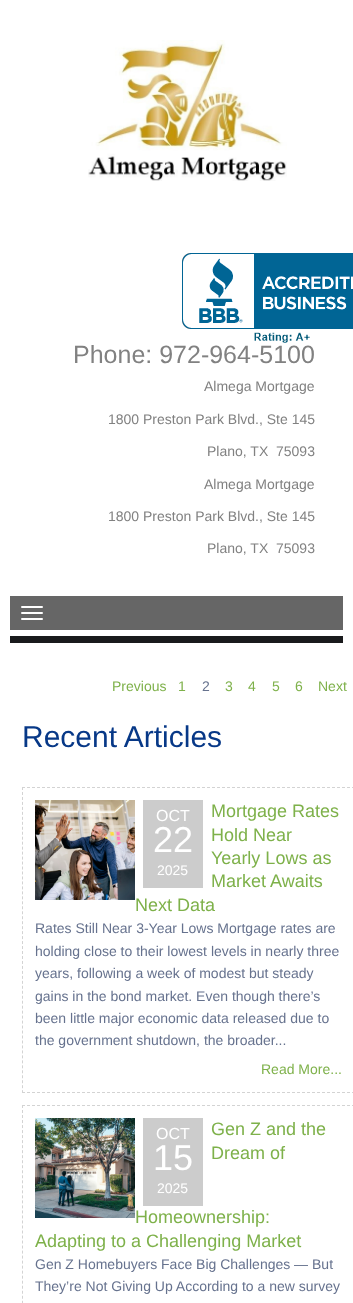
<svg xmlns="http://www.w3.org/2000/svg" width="353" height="1303">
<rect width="100%" height="100%" fill="#fff"/>
<image x="88" y="40" width="199" height="141" href="media/1.png"/>
<image x="182" y="253" width="171" height="90" href="media/2.png"/>
<text x="73" y="363" style="font-family:Liberation Sans;font-size:25px;fill:#818181">Phone: 972-964-5100</text>
<text x="204" y="391" style="font-family:Liberation Sans;font-size:14px;fill:#818181">Almega Mortgage</text>
<text x="108" y="424" style="font-family:Liberation Sans;font-size:14px;fill:#818181">1800 Preston Park Blvd., Ste 145</text>
<text x="207" y="456" style="font-family:Liberation Sans;font-size:14px;fill:#818181" xml:space="preserve">Plano, TX  75093</text>
<text x="204" y="489" style="font-family:Liberation Sans;font-size:14px;fill:#818181">Almega Mortgage</text>
<text x="108" y="521" style="font-family:Liberation Sans;font-size:14px;fill:#818181">1800 Preston Park Blvd., Ste 145</text>
<text x="207" y="553" style="font-family:Liberation Sans;font-size:14px;fill:#818181" xml:space="preserve">Plano, TX  75093</text>
<rect x="10" y="636" width="333" height="7" fill="#191a1c"/>
<rect x="10" y="596" width="333" height="34" fill="#666"/>
<rect x="21" y="606" width="22" height="2" rx="1" fill="#fff"/>
<rect x="21" y="612" width="22" height="2" rx="1" fill="#fff"/>
<rect x="21" y="618" width="22" height="2" rx="1" fill="#fff"/>
<text x="112" y="691" style="font-family:Liberation Sans;font-size:14px;fill:#7eb14a">Previous</text>
<text x="178" y="691" style="font-family:Liberation Sans;font-size:14px;fill:#7eb14a">1</text>
<text x="202" y="691" style="font-family:Liberation Sans;font-size:14px;fill:#66728e">2</text>
<text x="225" y="691" style="font-family:Liberation Sans;font-size:14px;fill:#7eb14a">3</text>
<text x="248" y="691" style="font-family:Liberation Sans;font-size:14px;fill:#7eb14a">4</text>
<text x="272" y="691" style="font-family:Liberation Sans;font-size:14px;fill:#7eb14a">5</text>
<text x="295" y="691" style="font-family:Liberation Sans;font-size:14px;fill:#7eb14a">6</text>
<text x="318" y="691" style="font-family:Liberation Sans;font-size:14px;fill:#7eb14a">Next</text>
<text x="22" y="747" style="font-family:Liberation Sans;font-size:30px;fill:#073887">Recent Articles</text>
<path d="M22 787.5h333" fill="none" stroke="#d3d3d3" stroke-dasharray="3 2"/>
<path d="M22 1092.5h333" fill="none" stroke="#d3d3d3" stroke-dasharray="3 2"/>
<path d="M22.5 787v306" fill="none" stroke="#d3d3d3" stroke-dasharray="3 1.97"/>
<image x="35" y="800" width="100" height="100" href="media/3.png"/>
<text x="211" y="817" style="font-family:Liberation Sans;font-size:18px;fill:#7eb14a">Mortgage Rates</text>
<text x="211" y="841" style="font-family:Liberation Sans;font-size:18px;fill:#7eb14a">Hold Near</text>
<text x="211" y="864" style="font-family:Liberation Sans;font-size:18px;fill:#7eb14a">Yearly Lows as</text>
<text x="211" y="887" style="font-family:Liberation Sans;font-size:18px;fill:#7eb14a">Market Awaits</text>
<text x="135" y="911" style="font-family:Liberation Sans;font-size:18px;fill:#7eb14a">Next Data</text>
<text x="35" y="933" style="font-family:Liberation Sans;font-size:14px;fill:#66728e">Rates Still Near 3-Year Lows Mortgage rates are</text>
<text x="35" y="956" style="font-family:Liberation Sans;font-size:14px;fill:#66728e">holding close to their lowest levels in nearly three</text>
<text x="35" y="978" style="font-family:Liberation Sans;font-size:14px;fill:#66728e">years, following a week of modest but steady</text>
<text x="35" y="1001" style="font-family:Liberation Sans;font-size:14px;fill:#66728e">gains in the bond market. Even though there’s</text>
<text x="35" y="1023" style="font-family:Liberation Sans;font-size:14px;fill:#66728e">been little major economic data released due to</text>
<text x="35" y="1045" style="font-family:Liberation Sans;font-size:14px;fill:#66728e">the government shutdown, the broader...</text>
<text x="261" y="1074" style="font-family:Liberation Sans;font-size:14px;fill:#7eb14a">Read More...</text>
<rect x="143" y="800" width="60" height="88" fill="#ccc"/>
<text x="156" y="821" style="font-family:Liberation Sans;font-size:16px;fill:#fff">OCT</text>
<text x="153" y="852" style="font-family:Liberation Sans;font-size:36px;fill:#fff">22</text>
<text x="157" y="875" style="font-family:Liberation Sans;font-size:14px;fill:#fff">2025</text>
<path d="M22 1105.5h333" fill="none" stroke="#d3d3d3" stroke-dasharray="3 2"/>
<path d="M22.5 1105v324" fill="none" stroke="#d3d3d3" stroke-dasharray="3 2.02"/>
<image x="35" y="1118" width="100" height="100" href="media/4.png"/>
<text x="211" y="1135" style="font-family:Liberation Sans;font-size:18px;fill:#7eb14a">Gen Z and the</text>
<text x="211" y="1159" style="font-family:Liberation Sans;font-size:18px;fill:#7eb14a">Dream of</text>
<text x="135" y="1223" style="font-family:Liberation Sans;font-size:18px;fill:#7eb14a">Homeownership:</text>
<text x="35" y="1247" style="font-family:Liberation Sans;font-size:18px;fill:#7eb14a">Adapting to a Challenging Market</text>
<text x="35" y="1269" style="font-family:Liberation Sans;font-size:14px;fill:#66728e">Gen Z Homebuyers Face Big Challenges — But</text>
<text x="35" y="1291" style="font-family:Liberation Sans;font-size:14px;fill:#66728e">They’re Not Giving Up According to a new survey</text>
<rect x="143" y="1118" width="60" height="88" fill="#ccc"/>
<text x="156" y="1139" style="font-family:Liberation Sans;font-size:16px;fill:#fff">OCT</text>
<text x="153" y="1170" style="font-family:Liberation Sans;font-size:36px;fill:#fff">15</text>
<text x="157" y="1193" style="font-family:Liberation Sans;font-size:14px;fill:#fff">2025</text>
</svg>
